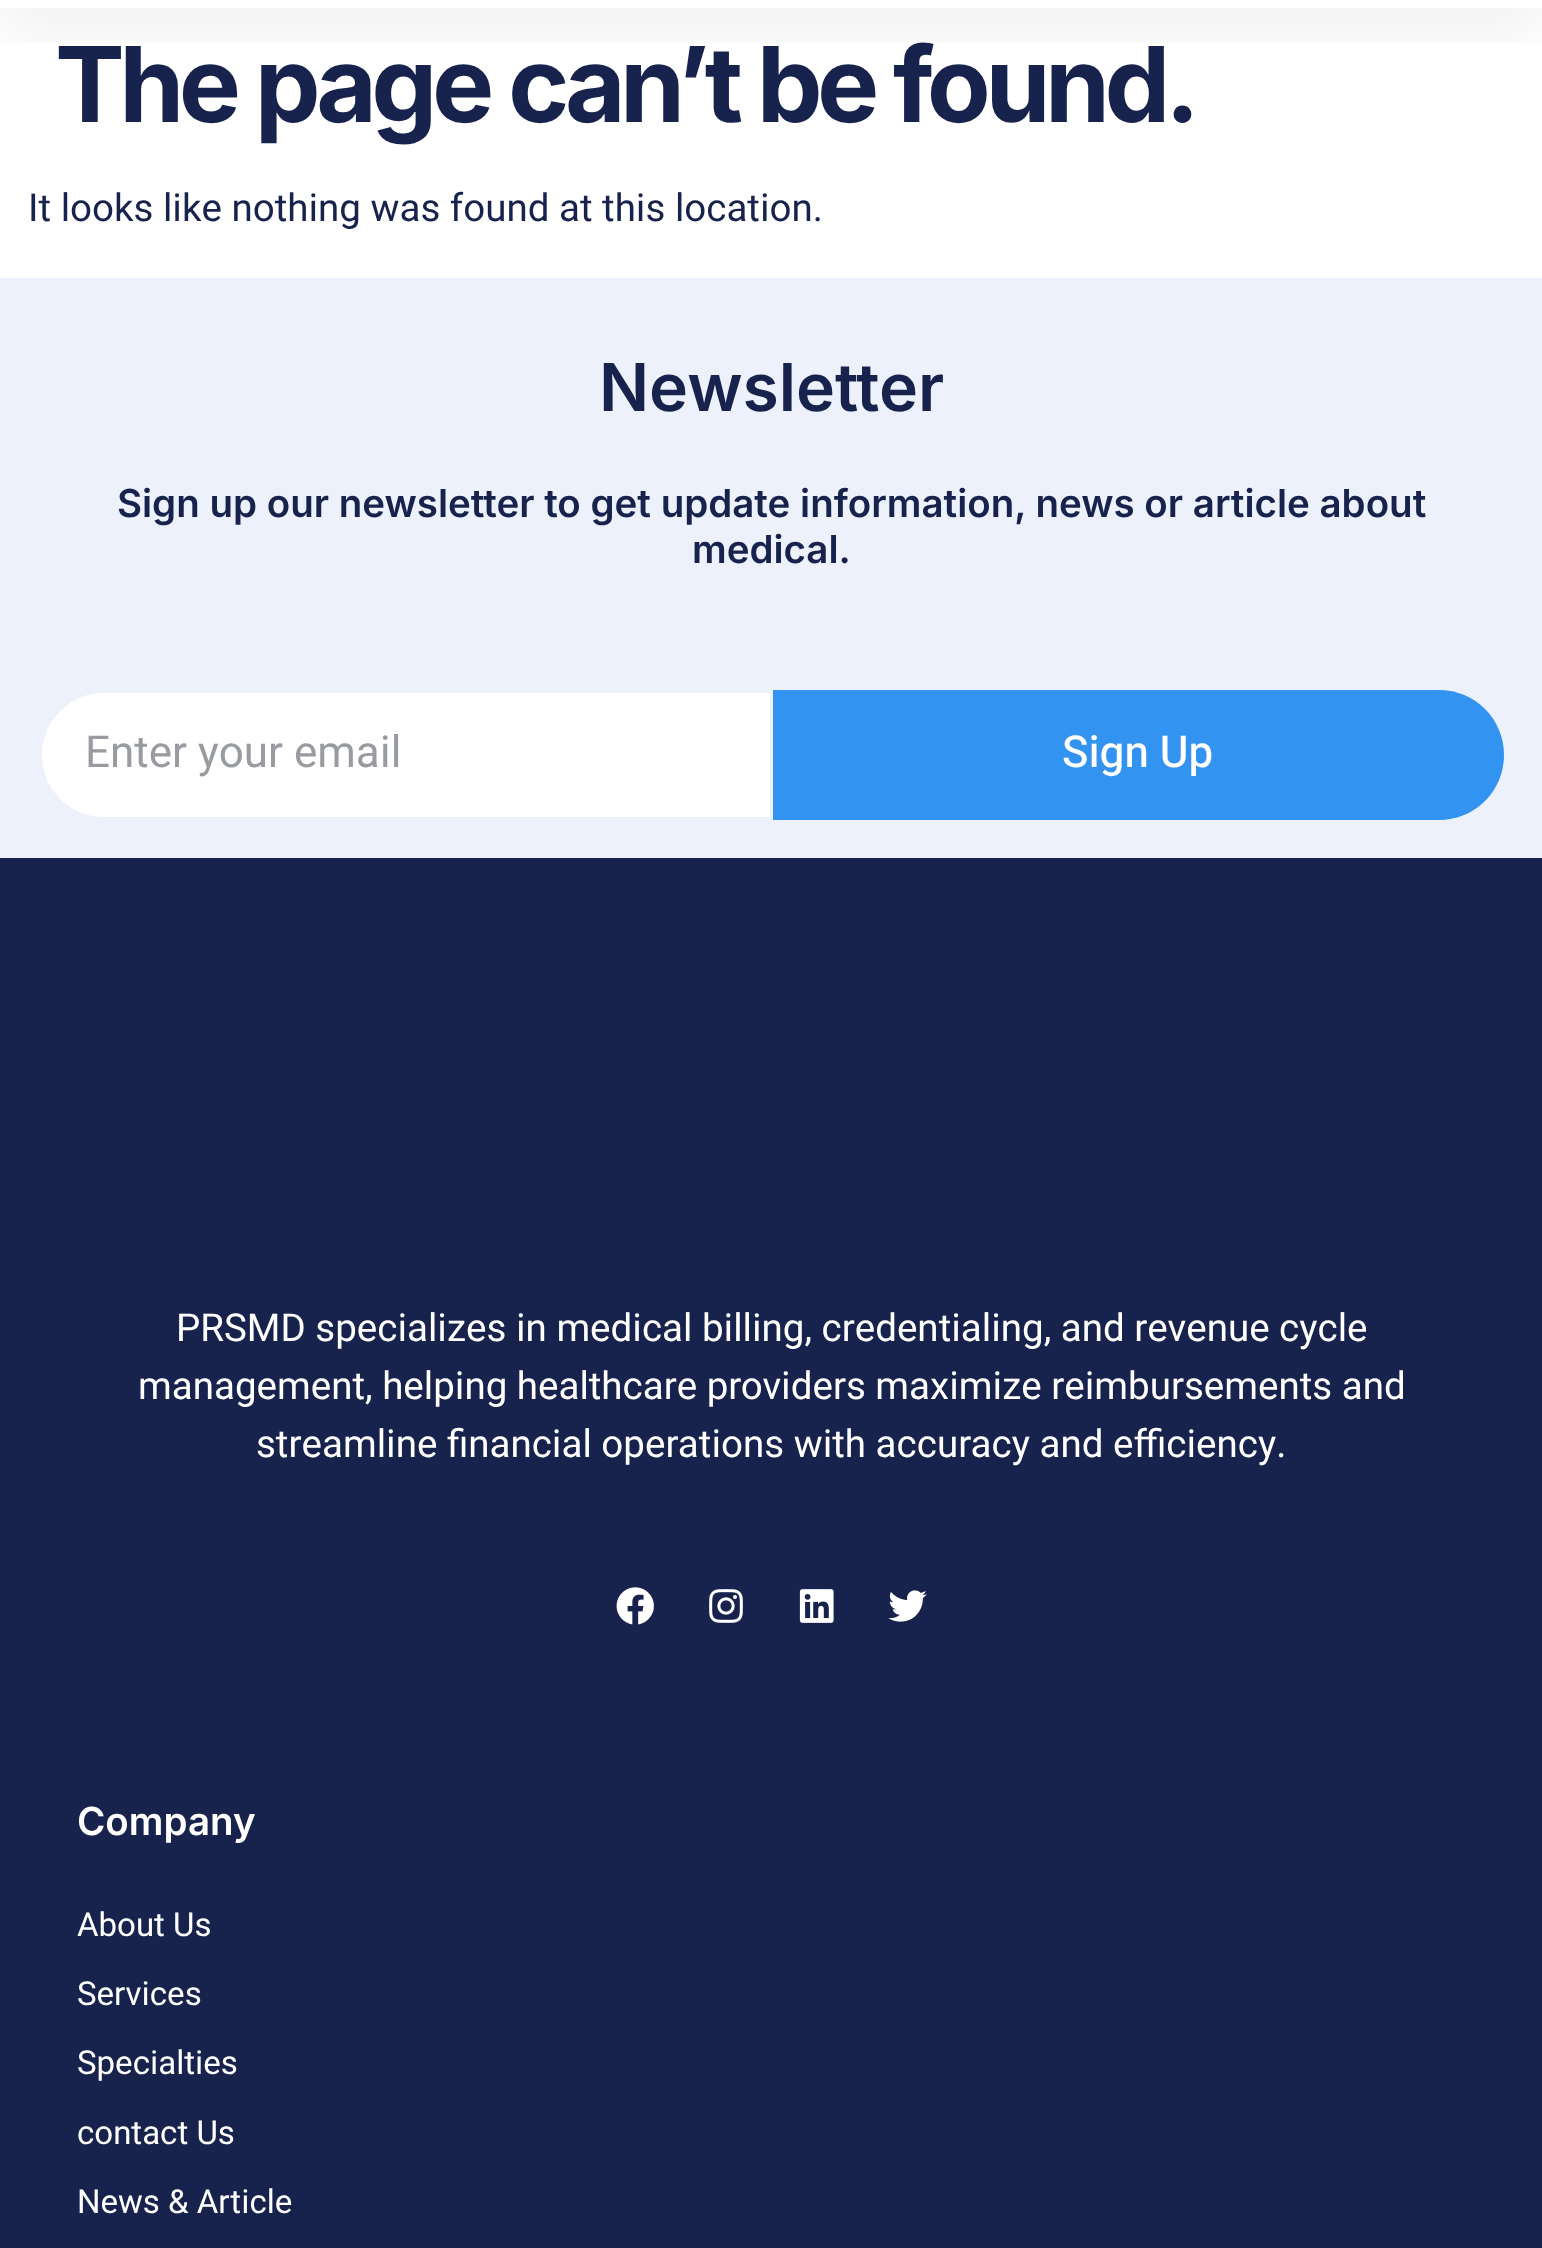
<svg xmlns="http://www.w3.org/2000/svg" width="1542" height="2248">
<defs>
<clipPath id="clip1"><rect x="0" y="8" width="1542" height="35"/></clipPath>
</defs>
<rect width="100%" height="100%" fill="#fff"/>
<g clip-path="url(#clip1)">
<rect y="-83" width="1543" height="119" fill="#0000000d" filter="blur(27.5px)"/>
</g>
<text x="55" y="122" style="font-family:Inter;font-size:104.5px;font-weight:bold;letter-spacing:-5.5px;fill:#17224d">The page can’t be found.</text>
<text x="28" y="221" style="font-family:Heebo;font-size:38.5px;fill:#17224d">It looks like nothing was found at this location.</text>
<rect y="278" width="1542" height="580" fill="#edf1fc"/>
<text x="599" y="411" style="font-family:Inter;font-size:66px;font-weight:600;fill:#17224d">Newsletter</text>
<text x="117" y="517" style="font-family:Inter;font-size:38.5px;font-weight:600;fill:#17224d">Sign up our newsletter to get update information, news or article about</text>
<text x="692" y="563" style="font-family:Inter;font-size:38.5px;font-weight:600;fill:#17224d">medical.</text>
<path d="M104 691.5h667.5v127h-667.5c-35 0-63.5-28.5-63.5-63.5c0-35 28.5-63.5 63.5-63.5z" fill="#fff" stroke="#edf1fc" stroke-width="3"/>
<text x="85" y="767" style="font-family:Heebo;font-size:44px;fill:#989b9f">Enter your email</text>
<path d="M773 690h666c36 0 65 29 65 65c0 36-29 65-65 65h-666z" fill="#3393f0"/>
<text x="1062" y="767" style="font-family:Heebo;font-size:44px;font-weight:500;fill:#fff">Sign Up</text>
<rect y="858" width="1542" height="1390" fill="#17224d"/>
<text x="176" y="1341" style="font-family:Heebo;font-size:38.5px;fill:#fff">PRSMD specializes in medical billing, credentialing, and revenue cycle</text>
<text x="138" y="1399" style="font-family:Heebo;font-size:38.5px;fill:#fff">management, helping healthcare providers maximize reimbursements and</text>
<text x="256" y="1457" style="font-family:Heebo;font-size:38.5px;fill:#fff">streamline financial operations with accuracy and efficiency.</text>
<image x="616" y="1587" width="38" height="38" href="media/1.png"/>
<image x="709" y="1589" width="34" height="34" href="media/2.png"/>
<image x="799" y="1589" width="35" height="34" href="media/3.png"/>
<image x="888" y="1590" width="39" height="32" href="media/4.png"/>
<text x="77" y="1835" style="font-family:Inter;font-size:38.5px;font-weight:600;fill:#fff">Company</text>
<text x="77" y="1936" style="font-family:Heebo;font-size:33px;fill:#fff">About Us</text>
<text x="77" y="2005" style="font-family:Heebo;font-size:33px;fill:#fff">Services</text>
<text x="77" y="2074" style="font-family:Heebo;font-size:33px;fill:#fff">Specialties</text>
<text x="77" y="2144" style="font-family:Heebo;font-size:33px;fill:#fff">contact Us</text>
<text x="77" y="2213" style="font-family:Heebo;font-size:33px;fill:#fff">News &amp; Article</text>
</svg>
